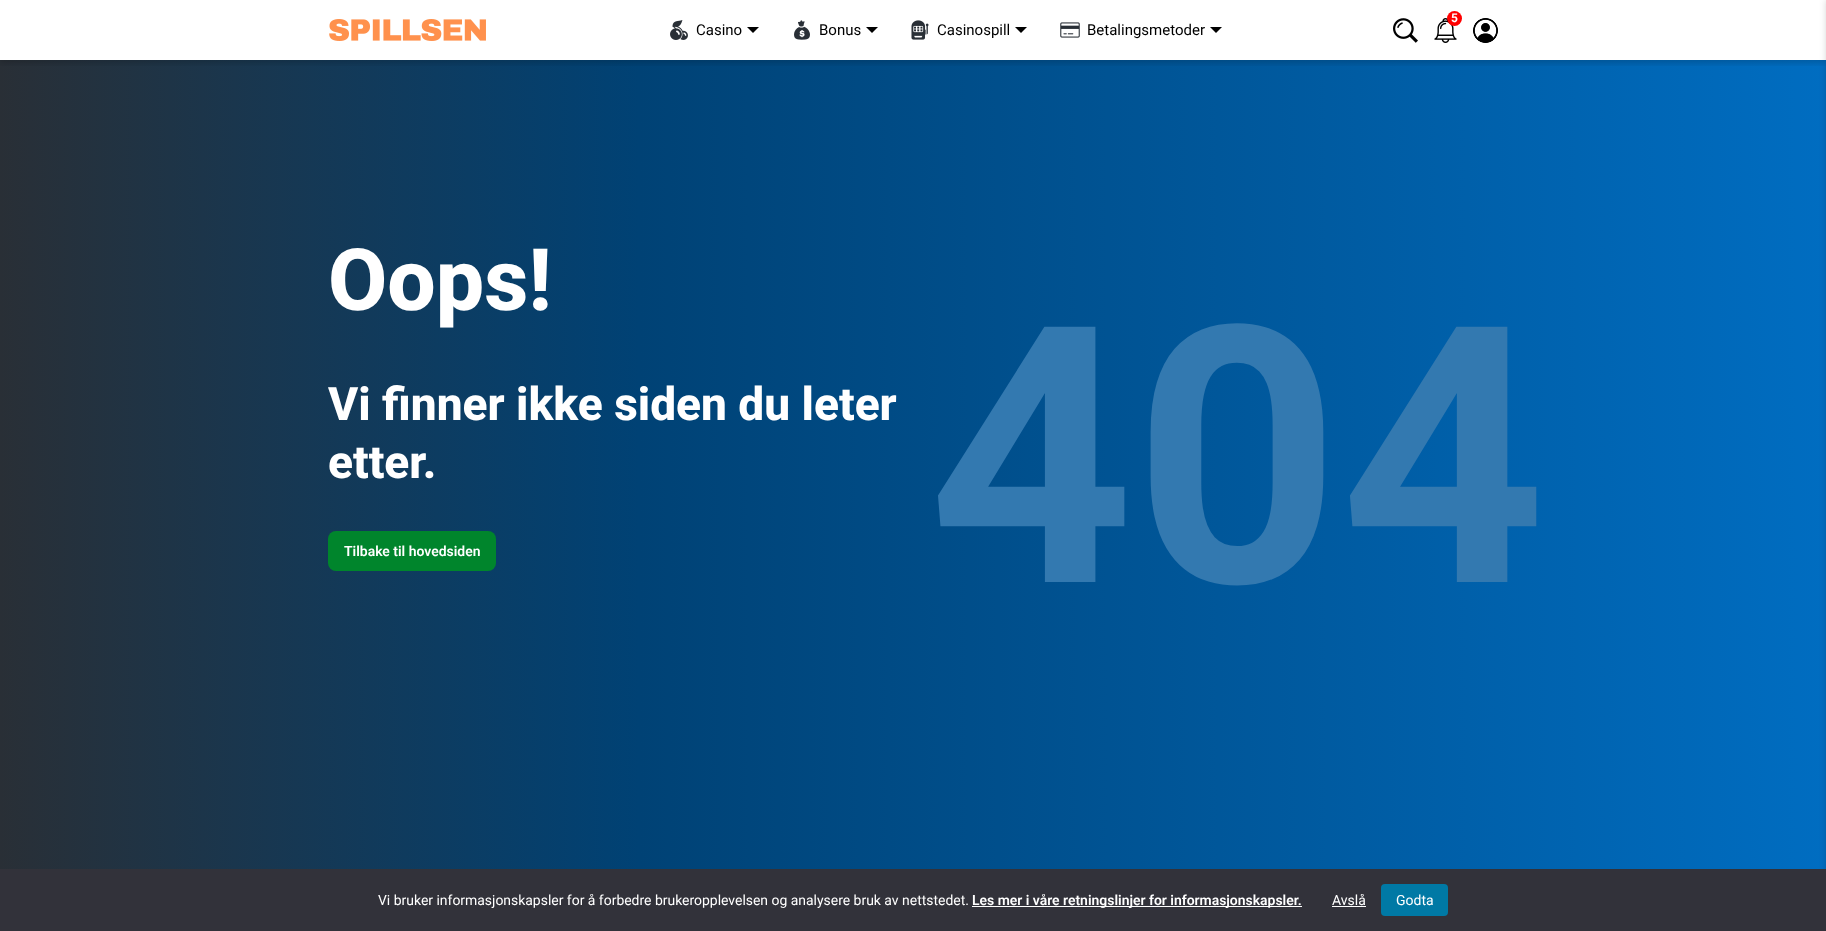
<svg xmlns="http://www.w3.org/2000/svg" width="1826" height="931">
<defs>
<linearGradient id="g1" gradientUnits="userSpaceOnUse" x1="0" y1="466" x2="1826" y2="465"><stop offset="0" stop-color="#292f36"/><stop offset="0.35" stop-color="#004275"/><stop offset="1" stop-color="#006dc1"/></linearGradient>
<clipPath id="clip1"><rect x="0" y="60" width="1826" height="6"/></clipPath>
</defs>
<rect width="100%" height="100%" fill="#fff"/>
<rect y="60" width="1826" height="809" fill="url(#g1)"/>
<g clip-path="url(#clip1)">
<rect y="3" width="1826" height="60" fill="#00000029" filter="blur(3px)"/>
</g>
<image x="329" y="19" width="157" height="22" href="media/1.png"/>
<image x="670" y="20" width="18" height="20" href="media/2.png"/>
<text x="696" y="35" style="font-family:Roboto;font-size:15px;fill:#000">Casino</text>
<path d="M747 27h12l-6 6z" fill="#000"/>
<image x="794" y="20" width="16" height="20" href="media/3.png"/>
<text x="819" y="35" style="font-family:Roboto;font-size:15px;fill:#000">Bonus</text>
<path d="M866 27h12l-6 6z" fill="#000"/>
<image x="911" y="20" width="18" height="20" href="media/4.png"/>
<text x="937" y="35" style="font-family:Roboto;font-size:15px;fill:#000">Casinospill</text>
<path d="M1015 27h12l-6 6z" fill="#000"/>
<image x="1060" y="22" width="20" height="16" href="media/5.png"/>
<text x="1087" y="35" style="font-family:Roboto;font-size:15px;fill:#000">Betalingsmetoder</text>
<path d="M1210 27h12l-6 6z" fill="#000"/>
<image x="1393" y="18" width="25" height="25" href="media/6.png"/>
<image x="1434" y="18" width="23" height="25" href="media/7.png"/>
<circle cx="1454.5" cy="18.5" r="7.5" fill="#f00"/>
<text x="1451" y="22" style="font-family:Roboto;font-size:12px;font-weight:bold;fill:#fff">5</text>
<image x="1473" y="18" width="25" height="25" href="media/8.png"/>
<rect x="1826" width="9" height="931" fill="#00000029" filter="blur(3px)"/>
<text x="328" y="310" style="font-family:Roboto;font-size:86px;font-weight:800;fill:#fff">Oops!</text>
<text x="328" y="420" style="font-family:Roboto;font-size:46px;font-weight:800;fill:#fff">Vi finner ikke siden du leter</text>
<text x="328" y="478" style="font-family:Roboto;font-size:46px;font-weight:800;fill:#fff">etter.</text>
<rect x="328" y="531" width="168" height="40" rx="8" fill="#00852c"/>
<text x="344" y="556" style="font-family:Roboto;font-size:13.95px;font-weight:600;fill:#fff">Tilbake til hovedsiden</text>
<text x="928" y="582" style="font-family:Roboto;font-size:359px;font-weight:bold;fill:#3379b0">404</text>
<rect y="869" width="1826" height="62" fill="#32323a"/>
<text x="378" y="905" style="font-family:Roboto;font-size:13.95px;fill:#fff">Vi bruker informasjonskapsler for å forbedre brukeropplevelsen og analysere bruk av nettstedet.</text>
<rect x="972" y="906" width="330" height="1" fill="#fff"/>
<text x="972" y="905" style="font-family:Roboto;font-size:13.95px;font-weight:600;fill:#fff">Les mer i våre retningslinjer for informasjonskapsler.</text>
<text x="1332" y="905" style="font-family:Roboto;font-size:14px;fill:#fff">Avslå</text>
<rect x="1332" y="906" width="34" height="1" fill="#fff"/>
<rect x="1381" y="884" width="67" height="32" rx="4" fill="#0079a5"/>
<text x="1396" y="905" style="font-family:Roboto;font-size:14px;fill:#fff">Godta</text>
</svg>
